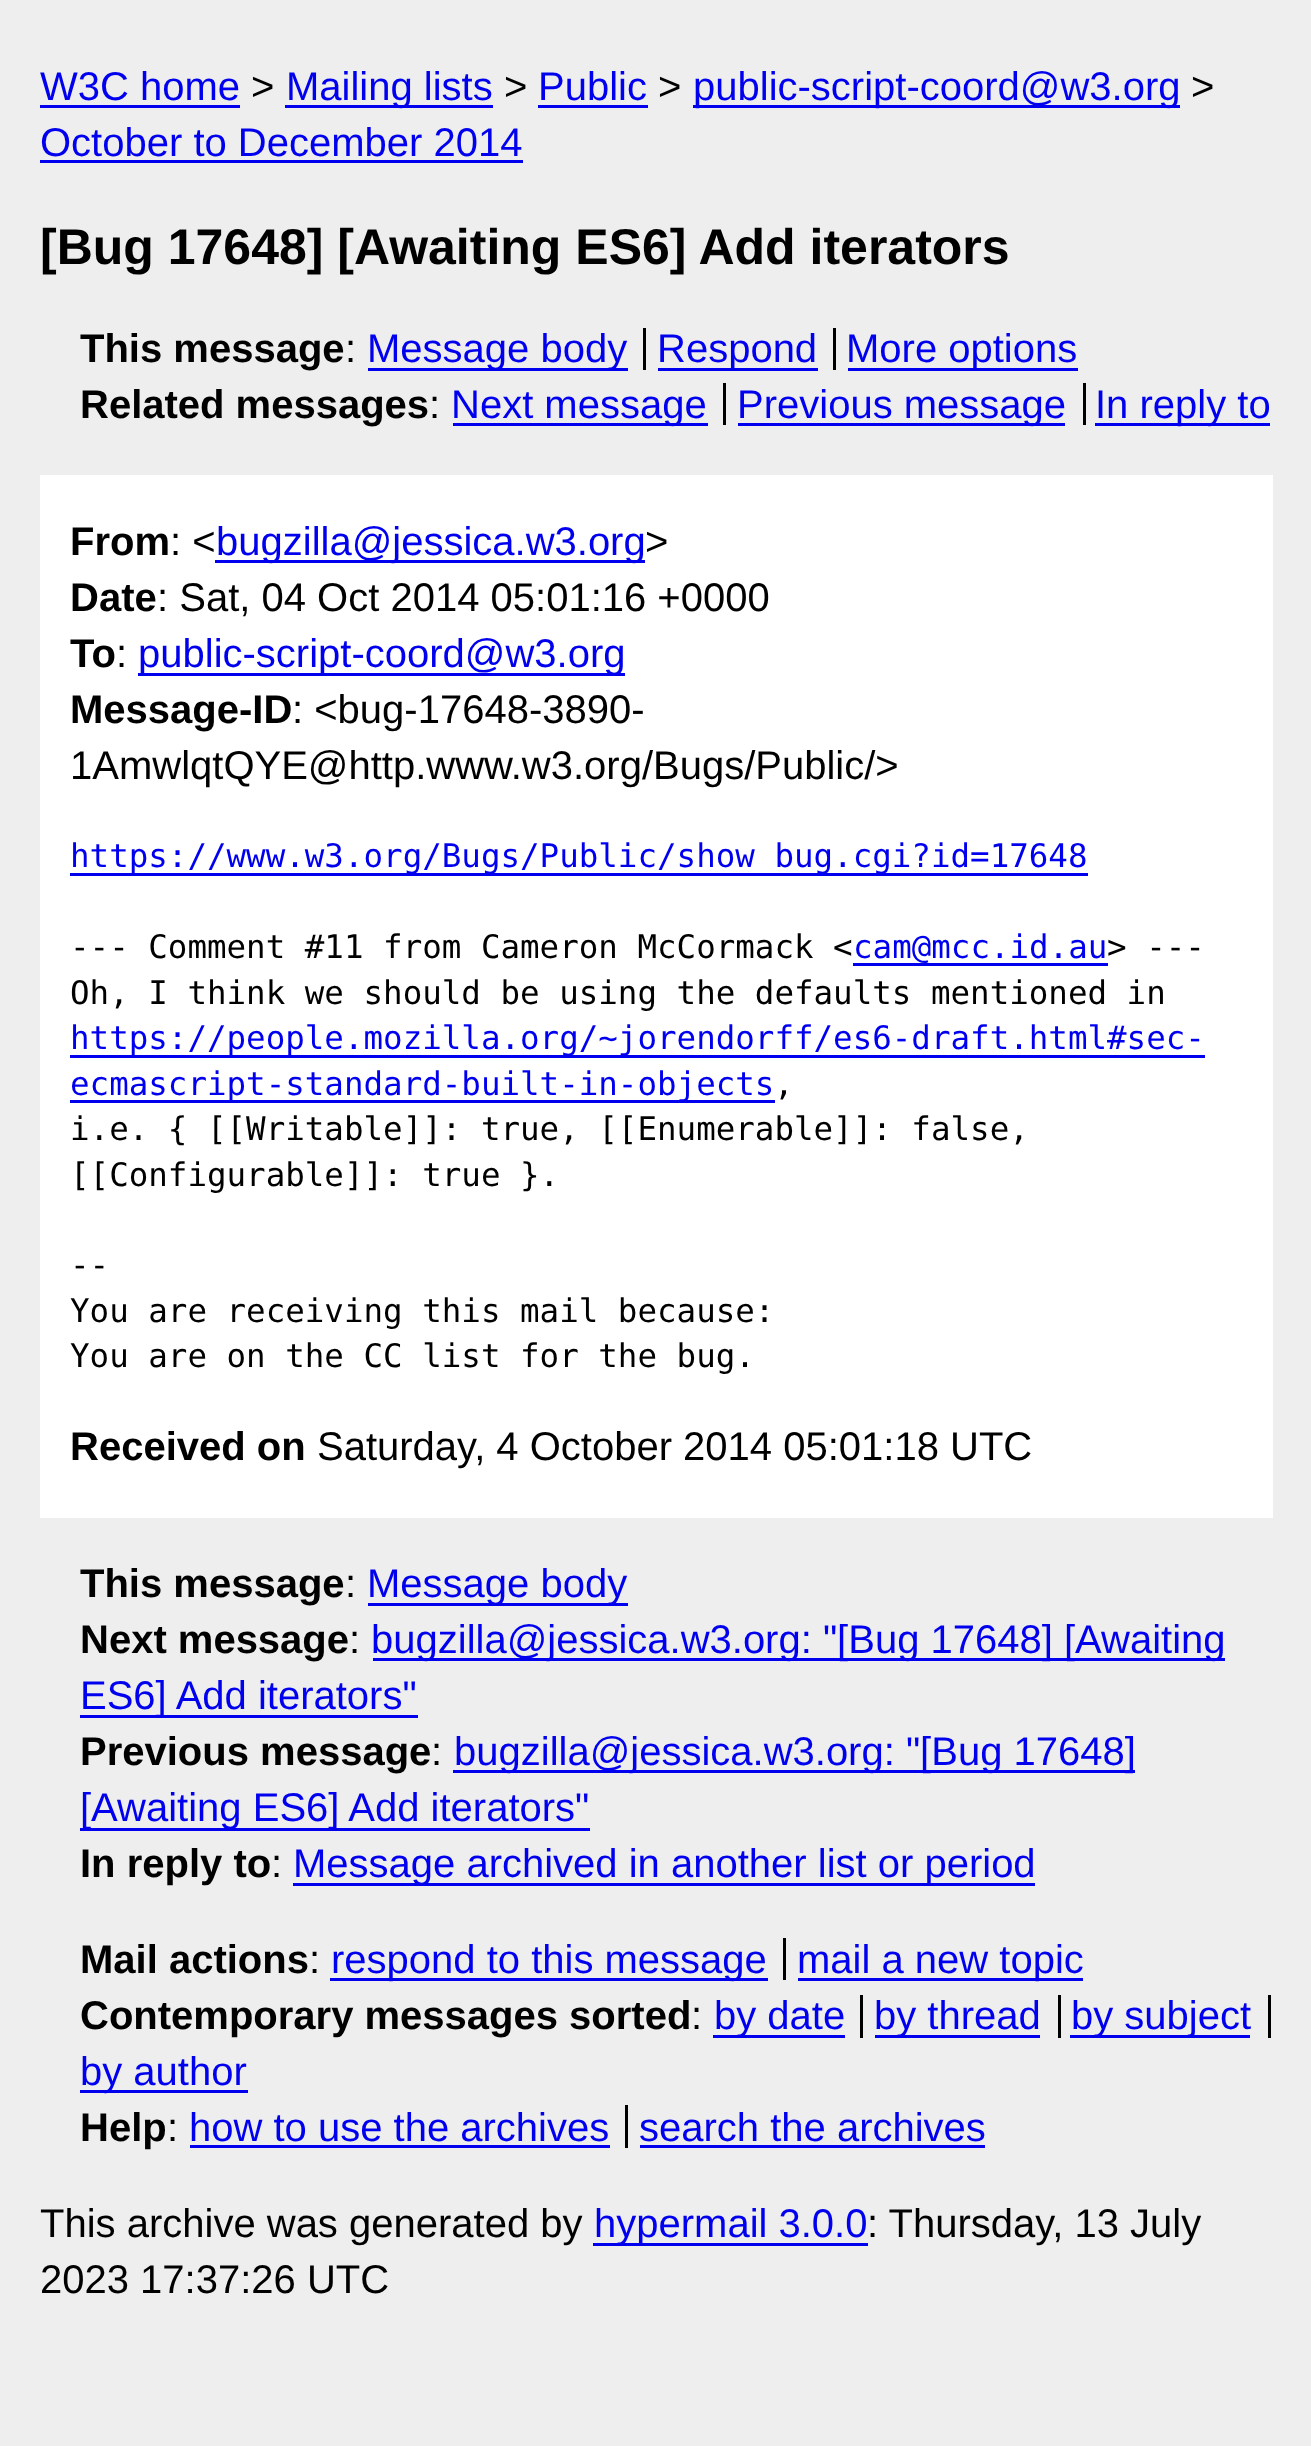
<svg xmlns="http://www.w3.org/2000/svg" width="1311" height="2446">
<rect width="100%" height="100%" fill="#eee"/>
<text x="40" y="100" style="font-family:Liberation Sans;font-size:40px;fill:#00e">W3C home</text>
<rect x="40" y="105" width="200" height="3" fill="#00e"/>
<text x="251" y="100" style="font-family:Liberation Sans;font-size:40px;fill:#000">&gt;</text>
<rect x="285" y="105" width="208" height="3" fill="#00e"/>
<text x="286" y="100" style="font-family:Liberation Sans;font-size:40px;fill:#00e">Mailing lists</text>
<text x="504" y="100" style="font-family:Liberation Sans;font-size:40px;fill:#000">&gt;</text>
<text x="538" y="100" style="font-family:Liberation Sans;font-size:40px;fill:#00e">Public</text>
<rect x="538" y="105" width="110" height="3" fill="#00e"/>
<text x="658" y="100" style="font-family:Liberation Sans;font-size:40px;fill:#000">&gt;</text>
<rect x="693" y="105" width="487" height="3" fill="#00e"/>
<text x="693" y="100" style="font-family:Liberation Sans;font-size:40px;fill:#00e">public-script-coord@w3.org</text>
<text x="1191" y="100" style="font-family:Liberation Sans;font-size:40px;fill:#000">&gt;</text>
<text x="40" y="156" style="font-family:Liberation Sans;font-size:40px;fill:#00e">October to December 2014</text>
<rect x="40" y="160" width="483" height="3" fill="#00e"/>
<text x="40" y="264" style="font-family:Liberation Sans;font-size:50px;font-weight:bold;fill:#000">[Bug 17648] [Awaiting ES6] Add iterators</text>
<text x="80" y="362" style="font-family:Liberation Sans;font-size:40px;font-weight:bold;fill:#000">This message</text>
<text x="345" y="362" style="font-family:Liberation Sans;font-size:40px;fill:#000">:</text>
<rect x="368" y="368" width="260" height="3" fill="#00e"/>
<text x="367" y="362" style="font-family:Liberation Sans;font-size:40px;fill:#00e">Message body</text>
<rect x="658" y="368" width="160" height="3" fill="#00e"/>
<text x="657" y="362" style="font-family:Liberation Sans;font-size:40px;fill:#00e">Respond</text>
<rect x="643" y="328" width="3" height="42" fill="#000"/>
<rect x="848" y="368" width="230" height="3" fill="#00e"/>
<text x="846" y="362" style="font-family:Liberation Sans;font-size:40px;fill:#00e">More options</text>
<rect x="833" y="328" width="3" height="42" fill="#000"/>
<text x="80" y="418" style="font-family:Liberation Sans;font-size:40px;font-weight:bold;fill:#000">Related messages</text>
<text x="429" y="418" style="font-family:Liberation Sans;font-size:40px;fill:#000">:</text>
<rect x="453" y="423" width="255" height="3" fill="#00e"/>
<text x="451" y="418" style="font-family:Liberation Sans;font-size:40px;fill:#00e">Next message</text>
<rect x="738" y="423" width="327" height="3" fill="#00e"/>
<text x="737" y="418" style="font-family:Liberation Sans;font-size:40px;fill:#00e">Previous message</text>
<rect x="723" y="383" width="3" height="42" fill="#000"/>
<rect x="1095" y="423" width="175" height="3" fill="#00e"/>
<text x="1095" y="418" style="font-family:Liberation Sans;font-size:40px;fill:#00e">In reply to</text>
<rect x="1083" y="383" width="3" height="42" fill="#000"/>
<rect x="40" y="475" width="1233" height="1043" fill="#fff"/>
<text x="70" y="555" style="font-family:Liberation Sans;font-size:40px;font-weight:bold;fill:#000">From</text>
<text x="170" y="555" style="font-family:Liberation Sans;font-size:40px;fill:#000">: &lt;</text>
<rect x="215" y="560" width="430" height="3" fill="#00e"/>
<text x="216" y="555" style="font-family:Liberation Sans;font-size:40px;fill:#00e">bugzilla@jessica.w3.org</text>
<text x="645" y="555" style="font-family:Liberation Sans;font-size:40px;fill:#000">&gt;</text>
<text x="70" y="611" style="font-family:Liberation Sans;font-size:40px;font-weight:bold;fill:#000">Date</text>
<text x="157" y="611" style="font-family:Liberation Sans;font-size:40px;fill:#000">: Sat, 04 Oct 2014 05:01:16 +0000</text>
<text x="70" y="667" style="font-family:Liberation Sans;font-size:40px;font-weight:bold;fill:#000">To</text>
<text x="116" y="667" style="font-family:Liberation Sans;font-size:40px;fill:#000">:</text>
<rect x="138" y="673" width="487" height="3" fill="#00e"/>
<text x="138" y="667" style="font-family:Liberation Sans;font-size:40px;fill:#00e">public-script-coord@w3.org</text>
<text x="70" y="723" style="font-family:Liberation Sans;font-size:40px;font-weight:bold;fill:#000">Message-ID</text>
<text x="292" y="723" style="font-family:Liberation Sans;font-size:40px;fill:#000">: &lt;bug-17648-3890-</text>
<text x="70" y="779" style="font-family:Liberation Sans;font-size:40px;fill:#000">1AmwlqtQYE@http.www.w3.org/Bugs/Public/&gt;</text>
<rect x="70" y="873" width="1018" height="3" fill="#00e"/>
<text x="70" y="867" style="font-family:DejaVu Sans Mono;font-size:32.5px;fill:#00e">https://www.w3.org/Bugs/Public/show_bug.cgi?id=17648</text>
<text x="70" y="958" style="font-family:DejaVu Sans Mono;font-size:32.5px;fill:#000">--- Comment #11 from Cameron McCormack &lt;</text>
<rect x="853" y="963" width="255" height="3" fill="#00e"/>
<text x="853" y="958" style="font-family:DejaVu Sans Mono;font-size:32.5px;fill:#00e">cam@mcc.id.au</text>
<text x="1107" y="958" style="font-family:DejaVu Sans Mono;font-size:32.5px;fill:#000">&gt; ---</text>
<text x="70" y="1004" style="font-family:DejaVu Sans Mono;font-size:32.5px;fill:#000">Oh, I think we should be using the defaults mentioned in</text>
<rect x="70" y="1055" width="1135" height="3" fill="#00e"/>
<text x="70" y="1049" style="font-family:DejaVu Sans Mono;font-size:32.5px;fill:#00e">https://people.mozilla.org/~jorendorff/es6-draft.html#sec-</text>
<rect x="70" y="1100" width="705" height="3" fill="#00e"/>
<text x="70" y="1095" style="font-family:DejaVu Sans Mono;font-size:32.5px;fill:#00e">ecmascript-standard-built-in-objects</text>
<text x="774" y="1095" style="font-family:DejaVu Sans Mono;font-size:32.5px;fill:#000">,</text>
<text x="70" y="1140" style="font-family:DejaVu Sans Mono;font-size:32.5px;fill:#000">i.e. { [[Writable]]: true, [[Enumerable]]: false,</text>
<text x="70" y="1186" style="font-family:DejaVu Sans Mono;font-size:32.5px;fill:#000">[[Configurable]]: true }.</text>
<text x="70" y="1276" style="font-family:DejaVu Sans Mono;font-size:32.5px;fill:#000">--</text>
<text x="70" y="1322" style="font-family:DejaVu Sans Mono;font-size:32.5px;fill:#000">You are receiving this mail because:</text>
<text x="70" y="1367" style="font-family:DejaVu Sans Mono;font-size:32.5px;fill:#000">You are on the CC list for the bug.</text>
<text x="70" y="1460" style="font-family:Liberation Sans;font-size:40px;font-weight:bold;fill:#000">Received on</text>
<text x="317" y="1460" style="font-family:Liberation Sans;font-size:40px;fill:#000">Saturday, 4 October 2014 05:01:18 UTC</text>
<text x="80" y="1597" style="font-family:Liberation Sans;font-size:40px;font-weight:bold;fill:#000">This message</text>
<text x="345" y="1597" style="font-family:Liberation Sans;font-size:40px;fill:#000">:</text>
<rect x="368" y="1603" width="260" height="3" fill="#00e"/>
<text x="367" y="1597" style="font-family:Liberation Sans;font-size:40px;fill:#00e">Message body</text>
<text x="80" y="1653" style="font-family:Liberation Sans;font-size:40px;font-weight:bold;fill:#000">Next message</text>
<text x="349" y="1653" style="font-family:Liberation Sans;font-size:40px;fill:#000">:</text>
<rect x="373" y="1658" width="852" height="3" fill="#00e"/>
<text x="371" y="1653" style="font-family:Liberation Sans;font-size:40px;fill:#00e">bugzilla@jessica.w3.org: "[Bug 17648] [Awaiting</text>
<rect x="80" y="1715" width="338" height="3" fill="#00e"/>
<text x="80" y="1709" style="font-family:Liberation Sans;font-size:40px;fill:#00e">ES6] Add iterators"</text>
<text x="80" y="1765" style="font-family:Liberation Sans;font-size:40px;font-weight:bold;fill:#000">Previous message</text>
<text x="431" y="1765" style="font-family:Liberation Sans;font-size:40px;fill:#000">:</text>
<rect x="453" y="1770" width="682" height="3" fill="#00e"/>
<text x="454" y="1765" style="font-family:Liberation Sans;font-size:40px;fill:#00e">bugzilla@jessica.w3.org: "[Bug 17648]</text>
<rect x="80" y="1828" width="510" height="3" fill="#00e"/>
<text x="80" y="1821" style="font-family:Liberation Sans;font-size:40px;fill:#00e">[Awaiting ES6] Add iterators"</text>
<text x="80" y="1877" style="font-family:Liberation Sans;font-size:40px;font-weight:bold;fill:#000">In reply to</text>
<text x="271" y="1877" style="font-family:Liberation Sans;font-size:40px;fill:#000">:</text>
<rect x="293" y="1883" width="742" height="3" fill="#00e"/>
<text x="293" y="1877" style="font-family:Liberation Sans;font-size:40px;fill:#00e">Message archived in another list or period</text>
<text x="80" y="1973" style="font-family:Liberation Sans;font-size:40px;font-weight:bold;fill:#000">Mail actions</text>
<text x="309" y="1973" style="font-family:Liberation Sans;font-size:40px;fill:#000">:</text>
<rect x="330" y="1978" width="438" height="3" fill="#00e"/>
<text x="331" y="1973" style="font-family:Liberation Sans;font-size:40px;fill:#00e">respond to this message</text>
<rect x="798" y="1978" width="285" height="3" fill="#00e"/>
<text x="797" y="1973" style="font-family:Liberation Sans;font-size:40px;fill:#00e">mail a new topic</text>
<rect x="783" y="1938" width="3" height="42" fill="#000"/>
<text x="80" y="2029" style="font-family:Liberation Sans;font-size:40px;font-weight:bold;fill:#000">Contemporary messages sorted</text>
<text x="691" y="2029" style="font-family:Liberation Sans;font-size:40px;fill:#000">:</text>
<rect x="713" y="2035" width="132" height="3" fill="#00e"/>
<text x="714" y="2029" style="font-family:Liberation Sans;font-size:40px;fill:#00e">by date</text>
<rect x="875" y="2035" width="165" height="3" fill="#00e"/>
<text x="874" y="2029" style="font-family:Liberation Sans;font-size:40px;fill:#00e">by thread</text>
<rect x="860" y="1995" width="3" height="43" fill="#000"/>
<rect x="1070" y="2035" width="180" height="3" fill="#00e"/>
<text x="1071" y="2029" style="font-family:Liberation Sans;font-size:40px;fill:#00e">by subject</text>
<rect x="1058" y="1995" width="3" height="43" fill="#000"/>
<rect x="1268" y="1995" width="3" height="43" fill="#000"/>
<rect x="80" y="2090" width="168" height="3" fill="#00e"/>
<text x="80" y="2085" style="font-family:Liberation Sans;font-size:40px;fill:#00e">by author</text>
<text x="80" y="2141" style="font-family:Liberation Sans;font-size:40px;font-weight:bold;fill:#000">Help</text>
<text x="167" y="2141" style="font-family:Liberation Sans;font-size:40px;fill:#000">:</text>
<text x="189" y="2141" style="font-family:Liberation Sans;font-size:40px;fill:#00e">how to use the archives</text>
<rect x="190" y="2145" width="420" height="3" fill="#00e"/>
<text x="639" y="2141" style="font-family:Liberation Sans;font-size:40px;fill:#00e">search the archives</text>
<rect x="625" y="2105" width="3" height="43" fill="#000"/>
<rect x="640" y="2145" width="345" height="3" fill="#00e"/>
<text x="40" y="2237" style="font-family:Liberation Sans;font-size:40px;fill:#000">This archive was generated by</text>
<rect x="593" y="2243" width="275" height="3" fill="#00e"/>
<text x="594" y="2237" style="font-family:Liberation Sans;font-size:40px;fill:#00e">hypermail 3.0.0</text>
<text x="867" y="2237" style="font-family:Liberation Sans;font-size:40px;fill:#000">: Thursday, 13 July</text>
<text x="40" y="2293" style="font-family:Liberation Sans;font-size:40px;fill:#000">2023 17:37:26 UTC</text>
</svg>
